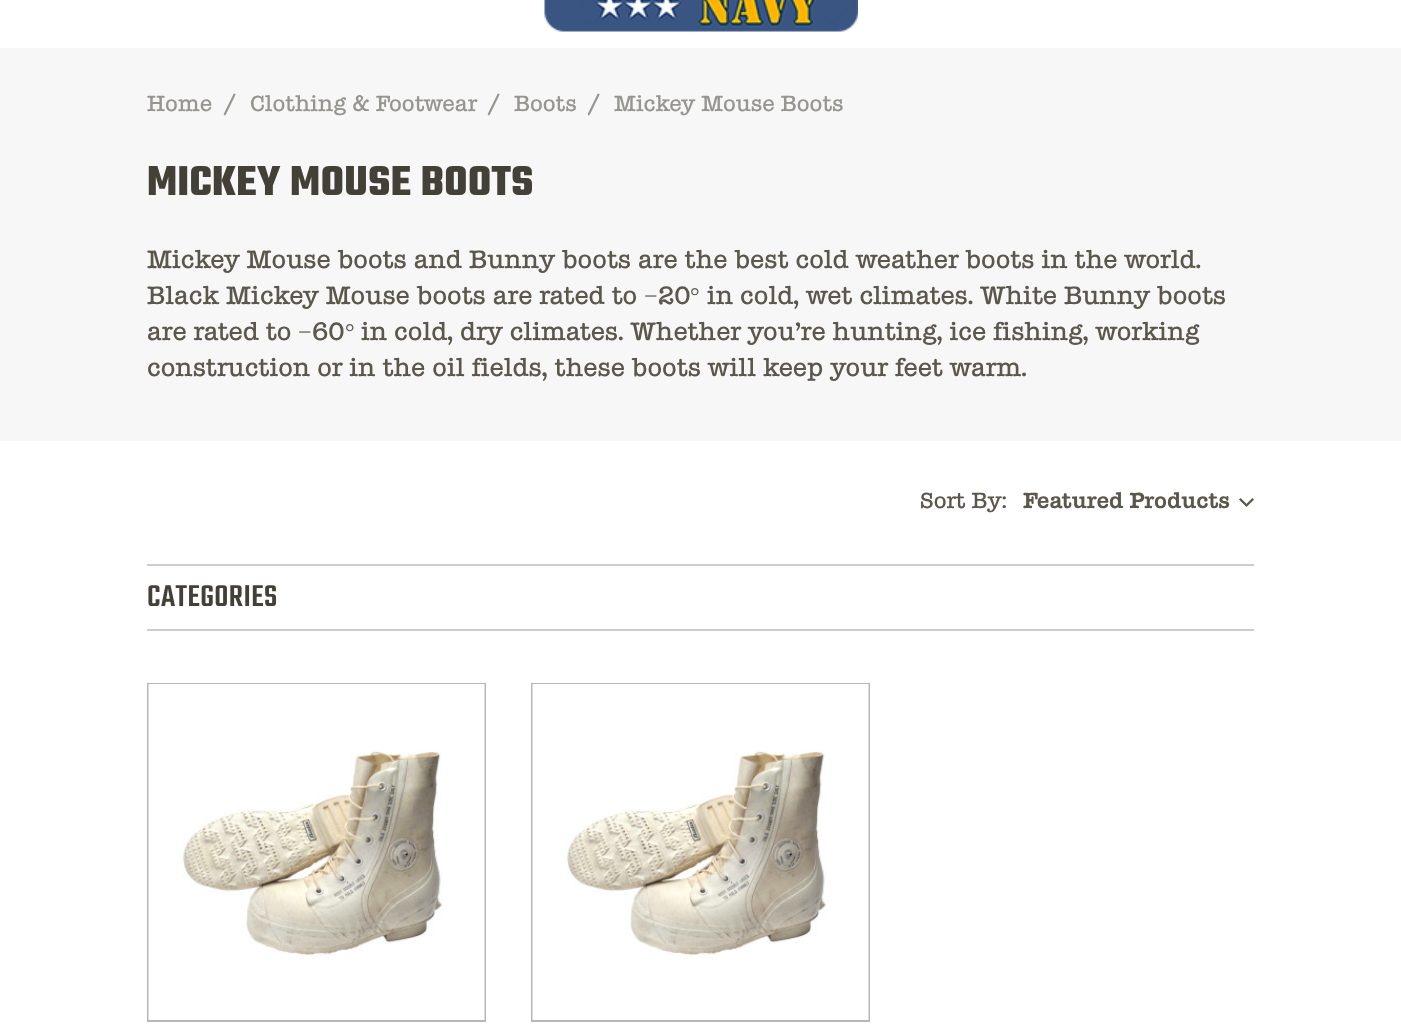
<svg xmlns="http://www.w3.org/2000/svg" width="1401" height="1033">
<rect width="100%" height="100%" fill="#fff"/>
<rect y="48" width="1401" height="393" fill="#f7f7f7"/>
<image x="544" y="0" width="314" height="32" href="media/1.png"/>
<text x="147" y="111" style="font-family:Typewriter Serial;font-size:21px;font-weight:500;fill:#979590">Home</text>
<text x="223" y="113" style="font-family:Typewriter Serial;font-size:24px;font-weight:500;fill:#979590">/</text>
<text x="250" y="111" style="font-family:Typewriter Serial;font-size:21px;font-weight:500;fill:#979590">Clothing &amp; Footwear</text>
<text x="487" y="113" style="font-family:Typewriter Serial;font-size:24px;font-weight:500;fill:#979590">/</text>
<text x="514" y="111" style="font-family:Typewriter Serial;font-size:21px;font-weight:500;fill:#979590">Boots</text>
<text x="587" y="113" style="font-family:Typewriter Serial;font-size:24px;font-weight:500;fill:#979590">/</text>
<text x="614" y="111" style="font-family:Typewriter Serial;font-size:21px;font-weight:500;fill:#979590">Mickey Mouse Boots</text>
<text x="147" y="195" style="font-family:Teko;font-size:45px;font-weight:bold;letter-spacing:0.4px;fill:#434038">MICKEY MOUSE BOOTS</text>
<text x="147" y="268" style="font-family:Typewriter Serial;font-size:24px;font-weight:500;fill:#5b574d">Mickey Mouse boots and Bunny boots are the best cold weather boots in the world.</text>
<text x="147" y="304" style="font-family:Typewriter Serial;font-size:24px;font-weight:500;fill:#5b574d">Black Mickey Mouse boots are rated to</text>
<text x="644" y="304" style="font-family:Liberation Serif;font-size:24px;fill:#5b574d">−</text>
<text x="658" y="304" style="font-family:Typewriter Serial;font-size:24px;font-weight:500;fill:#5b574d">20</text>
<text x="690" y="304" style="font-family:Liberation Serif;font-size:24px;fill:#5b574d">°</text>
<text x="707" y="304" style="font-family:Typewriter Serial;font-size:24px;font-weight:500;fill:#5b574d">in cold, wet climates. White Bunny boots</text>
<text x="147" y="340" style="font-family:Typewriter Serial;font-size:24px;font-weight:500;fill:#5b574d">are rated to</text>
<text x="298" y="340" style="font-family:Liberation Serif;font-size:24px;fill:#5b574d">−</text>
<text x="312" y="340" style="font-family:Typewriter Serial;font-size:24px;font-weight:500;fill:#5b574d">60</text>
<text x="345" y="340" style="font-family:Liberation Serif;font-size:24px;fill:#5b574d">°</text>
<text x="361" y="340" style="font-family:Typewriter Serial;font-size:24px;font-weight:500;fill:#5b574d">in cold, dry climates. Whether you’re hunting, ice fishing, working</text>
<text x="147" y="376" style="font-family:Typewriter Serial;font-size:24px;font-weight:500;fill:#5b574d">construction or in the oil fields, these boots will keep your feet warm.</text>
<text x="920" y="508" style="font-family:Typewriter Serial;font-size:21px;font-weight:500;fill:#5b574d">Sort By:</text>
<image x="1239" y="498" width="15" height="9" href="media/2.png"/>
<text x="1023" y="508" style="font-family:Typewriter Serial;font-size:21px;font-weight:bold;fill:#5b574d">Featured Products</text>
<rect x="147" y="564" width="1107" height="2" fill="#ccc"/>
<rect x="147" y="629" width="1107" height="2" fill="#ccc"/>
<text x="147" y="606" style="font-family:Teko;font-size:33px;font-weight:500;letter-spacing:0.4px;fill:#434038">CATEGORIES</text>
<rect x="148" y="684" width="337" height="337" fill="none" stroke="#b7b7b7" stroke-width="2"/>
<image x="148" y="684" width="337" height="336" href="media/3.png"/>
<rect x="532" y="684" width="337" height="337" fill="none" stroke="#b7b7b7" stroke-width="2"/>
<image x="532" y="684" width="337" height="336" href="media/4.png"/>
</svg>
